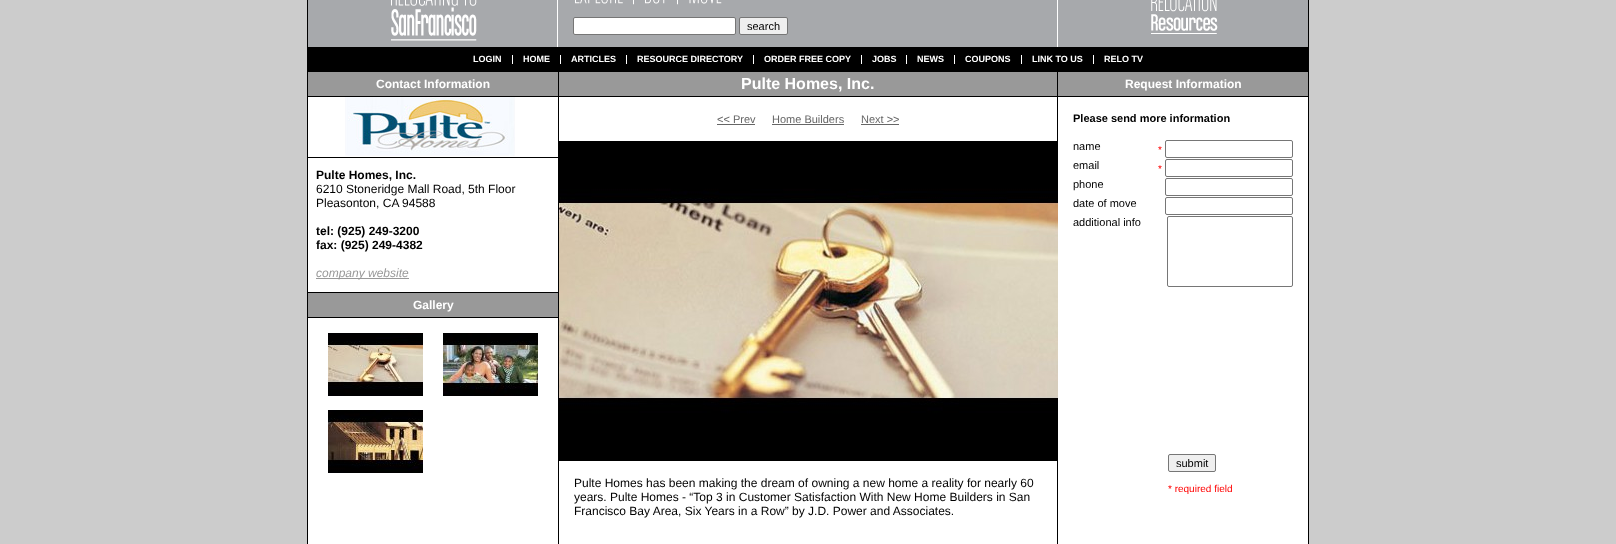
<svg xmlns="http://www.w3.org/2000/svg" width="1616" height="544">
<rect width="100%" height="100%" fill="#ccc"/>
<rect x="308" y="97" width="1000" height="447" fill="#fff"/>
<rect x="307" y="72" width="1" height="472" fill="#000"/>
<rect x="558" y="72" width="1" height="472" fill="#000"/>
<rect x="1057" y="72" width="1" height="472" fill="#000"/>
<rect x="1308" y="72" width="1" height="472" fill="#000"/>
<rect x="308" width="1000" height="47" fill="#a7a9ac"/>
<rect x="307" width="1" height="47" fill="#000"/>
<image x="391" y="0" width="86" height="41" href="media/1.png"/>
<rect x="557" width="1" height="47" fill="#fff"/>
<image x="575" y="0" width="147" height="5" href="media/2.png"/>
<rect x="573.5" y="17.5" width="162" height="17" rx="1.5" fill="#fff" stroke="#767676"/>
<rect x="739.5" y="17.5" width="48" height="17" rx="1.5" fill="#efefef" stroke="#767676"/>
<text x="747" y="30" style="font-family:Liberation Sans;font-size:11px;fill:#000">search</text>
<rect x="1057" width="1" height="47" fill="#fff"/>
<image x="1151" y="0" width="67" height="34" href="media/3.png"/>
<rect x="1308" width="1" height="47" fill="#000"/>
<rect x="307" y="47" width="1002" height="25" fill="#000"/>
<rect x="512" y="55" width="1" height="9" fill="#fff"/>
<text x="473" y="62" style="font-family:Liberation Sans;font-size:9px;font-weight:bold;fill:#fff">LOGIN</text>
<rect x="560" y="55" width="1" height="9" fill="#fff"/>
<text x="523" y="62" style="font-family:Liberation Sans;font-size:9px;font-weight:bold;fill:#fff">HOME</text>
<rect x="626" y="55" width="1" height="9" fill="#fff"/>
<text x="571" y="62" style="font-family:Liberation Sans;font-size:9px;font-weight:bold;fill:#fff">ARTICLES</text>
<rect x="753" y="55" width="1" height="9" fill="#fff"/>
<text x="637" y="62" style="font-family:Liberation Sans;font-size:9px;font-weight:bold;fill:#fff">RESOURCE DIRECTORY</text>
<rect x="861" y="55" width="1" height="9" fill="#fff"/>
<text x="764" y="62" style="font-family:Liberation Sans;font-size:9px;font-weight:bold;fill:#fff">ORDER FREE COPY</text>
<rect x="906" y="55" width="1" height="9" fill="#fff"/>
<text x="872" y="62" style="font-family:Liberation Sans;font-size:9px;font-weight:bold;fill:#fff">JOBS</text>
<rect x="954" y="55" width="1" height="9" fill="#fff"/>
<text x="917" y="62" style="font-family:Liberation Sans;font-size:9px;font-weight:bold;fill:#fff">NEWS</text>
<rect x="1021" y="55" width="1" height="9" fill="#fff"/>
<text x="965" y="62" style="font-family:Liberation Sans;font-size:9px;font-weight:bold;fill:#fff">COUPONS</text>
<rect x="1093" y="55" width="1" height="9" fill="#fff"/>
<text x="1032" y="62" style="font-family:Liberation Sans;font-size:9px;font-weight:bold;fill:#fff">LINK TO US</text>
<text x="1104" y="62" style="font-family:Liberation Sans;font-size:9px;font-weight:bold;fill:#fff">RELO TV</text>
<rect x="308" y="72" width="250" height="24" fill="#999"/>
<rect x="308" y="96" width="250" height="1" fill="#000"/>
<text x="376" y="88" style="font-family:Liberation Sans;font-size:12px;font-weight:bold;fill:#fff">Contact Information</text>
<image x="345" y="97" width="170" height="59" href="media/4.png"/>
<rect x="308" y="157" width="250" height="1" fill="#000"/>
<rect x="308" y="292" width="250" height="1" fill="#000"/>
<text x="316" y="179" style="font-family:Liberation Sans;font-size:12px;font-weight:bold;fill:#000">Pulte Homes, Inc.</text>
<text x="316" y="193" style="font-family:Liberation Sans;font-size:12px;fill:#000">6210 Stoneridge Mall Road, 5th Floor</text>
<text x="316" y="207" style="font-family:Liberation Sans;font-size:12px;fill:#000">Pleasonton, CA 94588</text>
<text x="316" y="235" style="font-family:Liberation Sans;font-size:12px;font-weight:bold;fill:#000">tel: (925) 249-3200</text>
<text x="316" y="249" style="font-family:Liberation Sans;font-size:12px;font-weight:bold;fill:#000">fax: (925) 249-4382</text>
<rect x="316" y="278" width="93" height="1" fill="#999"/>
<text x="316" y="277" style="font-family:Liberation Sans;font-size:12px;font-style:italic;fill:#999">company website</text>
<rect x="308" y="293" width="250" height="24" fill="#999"/>
<rect x="308" y="317" width="250" height="1" fill="#000"/>
<text x="413" y="309" style="font-family:Liberation Sans;font-size:12px;font-weight:bold;fill:#fff">Gallery</text>
<image x="328" y="333" width="95" height="63" href="media/5.png"/>
<image x="443" y="333" width="95" height="63" href="media/6.png"/>
<image x="328" y="410" width="95" height="63" href="media/7.png"/>
<rect x="559" y="72" width="498" height="24" fill="#999"/>
<rect x="559" y="96" width="498" height="1" fill="#000"/>
<text x="741" y="89" style="font-family:Liberation Sans;font-size:16px;font-weight:bold;fill:#fff">Pulte Homes, Inc.</text>
<text x="717" y="123" style="font-family:Liberation Sans;font-size:11px;fill:#666">&lt;&lt; Prev</text>
<rect x="717" y="124" width="38" height="1" fill="#666"/>
<text x="772" y="123" style="font-family:Liberation Sans;font-size:11px;fill:#666">Home Builders</text>
<rect x="772" y="124" width="72" height="1" fill="#666"/>
<text x="861" y="123" style="font-family:Liberation Sans;font-size:11px;fill:#666">Next &gt;&gt;</text>
<rect x="861" y="124" width="38" height="1" fill="#666"/>
<image x="559" y="141" width="499" height="320" href="media/8.png"/>
<text x="574" y="487" style="font-family:Liberation Sans;font-size:12px;fill:#000">Pulte Homes has been making the dream of owning a new home a reality for nearly 60</text>
<text x="574" y="501" style="font-family:Liberation Sans;font-size:12px;fill:#000">years. Pulte Homes - “Top 3 in Customer Satisfaction With New Home Builders in San</text>
<text x="574" y="515" style="font-family:Liberation Sans;font-size:12px;fill:#000">Francisco Bay Area, Six Years in a Row” by J.D. Power and Associates.</text>
<rect x="1058" y="72" width="250" height="24" fill="#999"/>
<rect x="1058" y="96" width="250" height="1" fill="#000"/>
<text x="1125" y="88" style="font-family:Liberation Sans;font-size:12px;font-weight:bold;fill:#fff">Request Information</text>
<text x="1073" y="122" style="font-family:Liberation Sans;font-size:11px;font-weight:bold;fill:#000">Please send more information</text>
<text x="1073" y="150" style="font-family:Liberation Sans;font-size:11px;fill:#000">name</text>
<text x="1158" y="153" style="font-family:Liberation Sans;font-size:10px;fill:#f00">*</text>
<rect x="1165.5" y="140.5" width="127" height="17" rx="1.5" fill="none" stroke="#767676"/>
<text x="1073" y="169" style="font-family:Liberation Sans;font-size:11px;fill:#000">email</text>
<text x="1158" y="172" style="font-family:Liberation Sans;font-size:10px;fill:#f00">*</text>
<rect x="1165.5" y="159.5" width="127" height="17" rx="1.5" fill="none" stroke="#767676"/>
<text x="1073" y="188" style="font-family:Liberation Sans;font-size:11px;fill:#000">phone</text>
<rect x="1165.5" y="178.5" width="127" height="17" rx="1.5" fill="none" stroke="#767676"/>
<text x="1073" y="207" style="font-family:Liberation Sans;font-size:11px;fill:#000">date of move</text>
<rect x="1165.5" y="197.5" width="127" height="17" rx="1.5" fill="none" stroke="#767676"/>
<text x="1073" y="226" style="font-family:Liberation Sans;font-size:11px;fill:#000">additional info</text>
<rect x="1167.5" y="216.5" width="125" height="70" rx="1.5" fill="none" stroke="#767676"/>
<rect x="1168.5" y="454.5" width="47" height="17" rx="1.5" fill="#efefef" stroke="#767676"/>
<text x="1176" y="467" style="font-family:Liberation Sans;font-size:11px;fill:#000">submit</text>
<text x="1168" y="492" style="font-family:Liberation Sans;font-size:10px;fill:#f00">* required field</text>
</svg>
